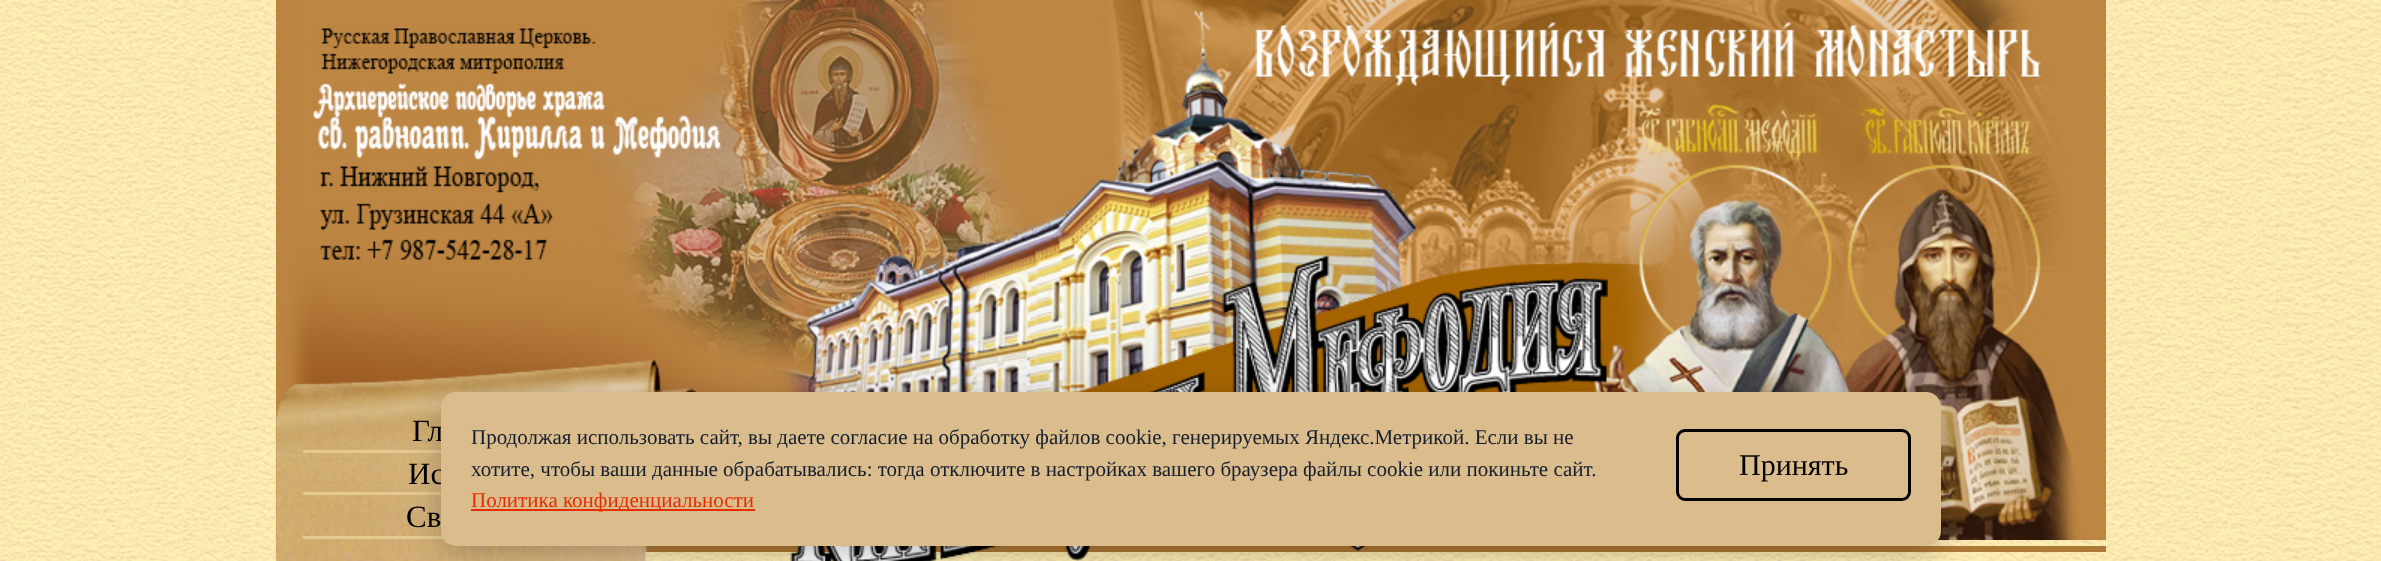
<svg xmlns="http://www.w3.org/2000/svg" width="2381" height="561">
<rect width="100%" height="100%" fill="#fff"/>
<image x="0" y="0" width="2381" height="561" href="media/1.png"/>
<image x="276" y="0" width="1830" height="540" href="media/2.png"/>
<rect x="276" y="546" width="1830" height="6" fill="#af7936"/>
<image x="790" y="255" width="818" height="306" href="media/3.png"/>
<image x="275" y="359" width="423" height="202" href="media/4.png"/>
<rect x="303" y="450" width="138" height="3" fill="#e4c991"/>
<text x="412" y="441" style="font-family:Liberation Serif;font-size:31px;fill:#030303">Гл</text>
<rect x="303" y="492" width="138" height="3" fill="#e4c991"/>
<text x="408" y="484" style="font-family:Liberation Serif;font-size:31px;fill:#030303">Ис</text>
<rect x="303" y="536" width="141" height="3" fill="#e4c991"/>
<text x="406" y="527" style="font-family:Liberation Serif;font-size:31px;fill:#030303">Св</text>
<rect x="446" y="404" width="1491" height="145" rx="11" fill="#0000004d" filter="blur(17px)"/>
<rect x="441" y="392" width="1500" height="154" rx="15" fill="#dbbc8c"/>
<text x="471" y="444" style="font-family:Liberation Serif;font-size:21px;fill:#141e2d">Продолжая использовать сайт, вы даете согласие на обработку файлов cookie, генерируемых Яндекс.Метрикой. Если вы не</text>
<text x="471" y="476" style="font-family:Liberation Serif;font-size:21px;fill:#141e2d">хотите, чтобы ваши данные обрабатывались: тогда отключите в настройках вашего браузера файлы cookie или покиньте сайт.</text>
<rect x="471" y="509" width="284" height="2" fill="#e62e04"/>
<text x="471" y="507" style="font-family:Liberation Serif;font-size:21px;fill:#e62e04">Политика конфиденциальности</text>
<rect x="1677.5" y="430.5" width="232" height="69" rx="7.5" fill="none" stroke="#000" stroke-width="3"/>
<text x="1739" y="475" style="font-family:Liberation Serif;font-size:30px;fill:#030303">Принять</text>
</svg>
